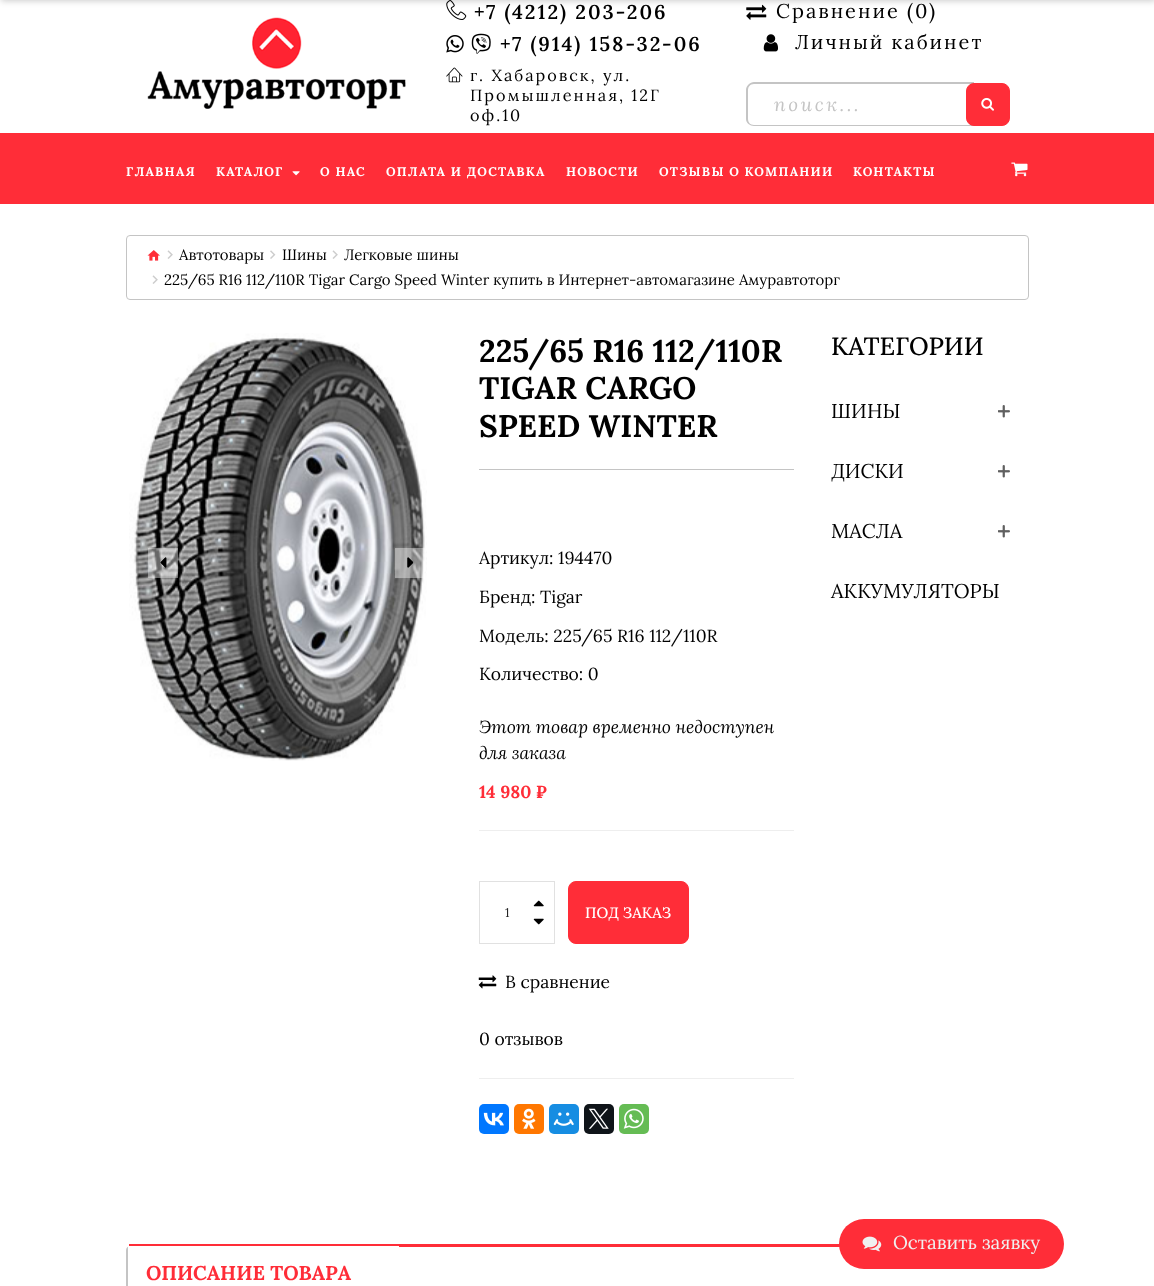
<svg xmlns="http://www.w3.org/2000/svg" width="1154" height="1286">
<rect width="100%" height="100%" fill="#fff"/>
<image x="446" y="0" width="21" height="20" href="media/2.png"/>
<image x="746" y="4" width="21" height="16" href="media/6.png"/>
<rect x="1" y="-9" width="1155" height="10" fill="#00000033" filter="blur(3px)"/>
<image x="147" y="17" width="259" height="92" href="media/1.png"/>
<text x="474" y="19" style="font-family:Lora;font-size:20px;font-weight:600;letter-spacing:2px;fill:#000">+7 (4212) 203-206</text>
<image x="446" y="35" width="18" height="18" href="media/3.png"/>
<image x="471" y="33" width="20" height="21" href="media/4.png"/>
<text x="500" y="51" style="font-family:Lora;font-size:20px;font-weight:600;letter-spacing:2px;fill:#000">+7 (914) 158-32-06</text>
<image x="446" y="67" width="17" height="16" href="media/5.png"/>
<text x="470" y="81" style="font-family:Lora;font-size:16.25px;letter-spacing:2px;fill:#000">г. Хабаровск, ул.</text>
<text x="470" y="101" style="font-family:Lora;font-size:16.25px;letter-spacing:2px;fill:#000">Промышленная, 12Г</text>
<text x="470" y="121" style="font-family:Lora;font-size:16.25px;letter-spacing:2px;fill:#000">оф.10</text>
<text x="776" y="18" style="font-family:Lora;font-size:20px;letter-spacing:2px;fill:#000">Сравнение (</text>
<text x="915" y="18" style="font-family:Lora;font-size:20px;letter-spacing:2px;fill:#000">0</text>
<text x="929" y="18" style="font-family:Lora;font-size:20px;letter-spacing:2px;fill:#000">)</text>
<image x="763" y="34" width="15" height="18" href="media/7.png"/>
<text x="795" y="49" style="font-family:Lora;font-size:20px;letter-spacing:2px;fill:#000">Личный кабинет</text>
<path d="M754 82h220v44h-220c-4 0-8-3-8-7v-29c0-4 4-8 8-8zm0 2h220v41h-220c-4 0-6-3-6-6v-29c0-3 2-6 6-6z" fill="#c4c4c4" fill-rule="evenodd"/>
<text x="774" y="111" style="font-family:Lora;font-size:18.75px;font-style:italic;letter-spacing:2.75px;fill:#c4c4c4">поиск...</text>
<rect x="966.5" y="83.5" width="43" height="42" rx="7.5" fill="#ff2d38" stroke="#ff2d38"/>
<image x="981" y="97" width="13" height="14" href="media/8.png"/>
<rect y="133" width="1154" height="71" fill="#ff2d38"/>
<text x="126" y="176" style="font-family:Lora;font-size:12.5px;font-weight:bold;letter-spacing:1.25px;fill:#fff">ГЛАВНАЯ</text>
<text x="216" y="176" style="font-family:Lora;font-size:12.5px;font-weight:bold;letter-spacing:1.25px;fill:#fff">КАТАЛОГ</text>
<image x="292" y="171" width="8" height="5" href="media/9.png"/>
<text x="320" y="176" style="font-family:Lora;font-size:12.5px;font-weight:bold;letter-spacing:1.25px;fill:#fff">О НАС</text>
<text x="386" y="176" style="font-family:Lora;font-size:12.5px;font-weight:bold;letter-spacing:1.25px;fill:#fff">ОПЛАТА И ДОСТАВКА</text>
<text x="566" y="176" style="font-family:Lora;font-size:12.5px;font-weight:bold;letter-spacing:1.25px;fill:#fff">НОВОСТИ</text>
<text x="659" y="176" style="font-family:Lora;font-size:12.5px;font-weight:bold;letter-spacing:1.25px;fill:#fff">ОТЗЫВЫ О КОМПАНИИ</text>
<text x="853" y="176" style="font-family:Lora;font-size:12.5px;font-weight:bold;letter-spacing:1.25px;fill:#fff">КОНТАКТЫ</text>
<image x="1011" y="162" width="17" height="15" href="media/10.png"/>
<rect x="126.5" y="235.5" width="902" height="64" rx="3.5" fill="none" stroke="#c4c4c4"/>
<image x="147" y="250" width="13" height="11" href="media/11.png"/>
<image x="167" y="250" width="6" height="9" href="media/12.png"/>
<text x="179" y="260" style="font-family:Lora;font-size:15px;fill:#000">Автотовары</text>
<image x="270" y="250" width="6" height="9" href="media/13.png"/>
<text x="282" y="260" style="font-family:Lora;font-size:15px;fill:#000">Шины</text>
<image x="332" y="250" width="6" height="9" href="media/12.png"/>
<text x="344" y="260" style="font-family:Lora;font-size:15px;fill:#000">Легковые шины</text>
<image x="152" y="275" width="6" height="9" href="media/12.png"/>
<text x="164" y="285" style="font-family:Lora;font-size:15px;fill:#000">225/65 R16 112/110R Tigar Cargo Speed Winter купить в Интернет-автомагазине Амуравтоторг</text>
<image x="129" y="333" width="298" height="428" href="media/14.png"/>
<rect x="148" y="548" width="30" height="30" fill="#ffffff66"/>
<image x="160" y="557" width="7" height="11" href="media/15.png"/>
<image x="160" y="557" width="7" height="11" href="media/16.png"/>
<rect x="395" y="548" width="30" height="30" fill="#ffffff66"/>
<image x="407" y="557" width="7" height="11" href="media/17.png"/>
<image x="407" y="557" width="7" height="11" href="media/18.png"/>
<text x="479" y="362" style="font-family:Lora;font-size:31.25px;font-weight:bold;fill:#000">225/65 R16 112/110R</text>
<text x="479" y="399" style="font-family:Lora;font-size:31.25px;font-weight:bold;fill:#000">TIGAR CARGO</text>
<text x="479" y="437" style="font-family:Lora;font-size:31.25px;font-weight:bold;fill:#000">SPEED WINTER</text>
<rect x="479" y="469" width="315" height="1" fill="#c4c4c4"/>
<text x="479" y="564" style="font-family:Lora;font-size:17.5px;fill:#000">Артикул: 194470</text>
<text x="479" y="603" style="font-family:Lora;font-size:17.5px;fill:#000">Бренд: Tigar</text>
<text x="479" y="642" style="font-family:Lora;font-size:17.5px;fill:#000">Модель: 225/65 R16 112/110R</text>
<text x="479" y="680" style="font-family:Lora;font-size:17.5px;fill:#000">Количество: 0</text>
<text x="479" y="733" style="font-family:Lora;font-size:17.5px;font-style:italic;fill:#000">Этот товар временно недоступен</text>
<text x="479" y="759" style="font-family:Lora;font-size:17.5px;font-style:italic;fill:#000">для заказа</text>
<text x="479" y="798" style="font-family:Lora;font-size:17.5px;font-weight:bold;fill:#ff2d38">14 980 ₽</text>
<rect x="479" y="830" width="315" height="1" fill="#eee"/>
<rect x="479.5" y="881.5" width="75" height="62" fill="none" stroke="#e1e1e1"/>
<image x="533" y="900" width="11" height="7" href="media/19.png"/>
<text x="505" y="917" style="font-family:Lora;font-size:12.5px;letter-spacing:1.25px;fill:#252525">1</text>
<image x="533" y="918" width="11" height="7" href="media/20.png"/>
<rect x="568.5" y="881.5" width="120" height="62" rx="7.5" fill="#ff2d38" stroke="#ff2d38"/>
<text x="585" y="918" style="font-family:Lora;font-size:15px;font-weight:500;fill:#fff">ПОД ЗАКАЗ</text>
<image x="478" y="975" width="19" height="14" href="media/21.png"/>
<text x="505" y="988" style="font-family:Lora;font-size:17.5px;fill:#000">В сравнение</text>
<text x="479" y="1045" style="font-family:Lora;font-size:17.5px;fill:#000">0 отзывов</text>
<rect x="479" y="1078" width="315" height="1" fill="#eee"/>
<rect x="479" y="1104" width="30" height="30" rx="5" fill="#07f"/>
<image x="483" y="1112" width="21" height="14" href="media/22.png"/>
<rect x="514" y="1104" width="30" height="30" rx="5" fill="#f70"/>
<image x="522" y="1108" width="14" height="21" href="media/23.png"/>
<rect x="549" y="1104" width="30" height="30" rx="5" fill="#168de2"/>
<image x="553" y="1112" width="21" height="14" href="media/24.png"/>
<rect x="584" y="1104" width="30" height="30" rx="5" fill="#0f1419"/>
<image x="588" y="1108" width="21" height="21" href="media/25.png"/>
<rect x="619" y="1104" width="30" height="30" rx="5" fill="#65bc54"/>
<image x="623" y="1108" width="21" height="21" href="media/26.png"/>
<text x="831" y="355" style="font-family:Lora;font-size:25px;font-weight:500;fill:#000">КАТЕГОРИИ</text>
<text x="831" y="418" style="font-family:Lora;font-size:20px;fill:#000">ШИНЫ</text>
<image x="998" y="405" width="12" height="13" href="media/27.png"/>
<text x="831" y="478" style="font-family:Lora;font-size:20px;fill:#000">ДИСКИ</text>
<image x="998" y="465" width="12" height="13" href="media/27.png"/>
<text x="831" y="538" style="font-family:Lora;font-size:20px;fill:#000">МАСЛА</text>
<image x="998" y="525" width="12" height="13" href="media/27.png"/>
<text x="831" y="598" style="font-family:Lora;font-size:20px;fill:#000">АККУМУЛЯТОРЫ</text>
<rect x="129" y="1244" width="711" height="3" fill="#ff2d38"/>
<path d="M130 1246h264c2 0 4 2 4 4v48c0 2-2 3-4 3h-264c-2 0-4-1-4-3v-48c0-2 2-4 4-4zm0 0h264c1 0 2 2 2 4v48c0 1-1 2-2 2h-264c-1 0-2-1-2-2v-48c0-2 1-4 2-4z" fill="#c4c4c4" fill-rule="evenodd"/>
<rect x="128" y="1246" width="271" height="40" fill="#fff"/>
<text x="146" y="1280" style="font-family:Lora;font-size:20px;font-weight:bold;fill:#ff2d38">ОПИСАНИЕ ТОВАРА</text>
<rect x="839" y="1219" width="225" height="50" rx="25" fill="#ff2d38"/>
<image x="862" y="1236" width="20" height="16" href="media/28.png"/>
<text x="893" y="1249" style="font-family:Lora;font-size:18.75px;fill:#f0f0f0">Оставить заявку</text>
</svg>
